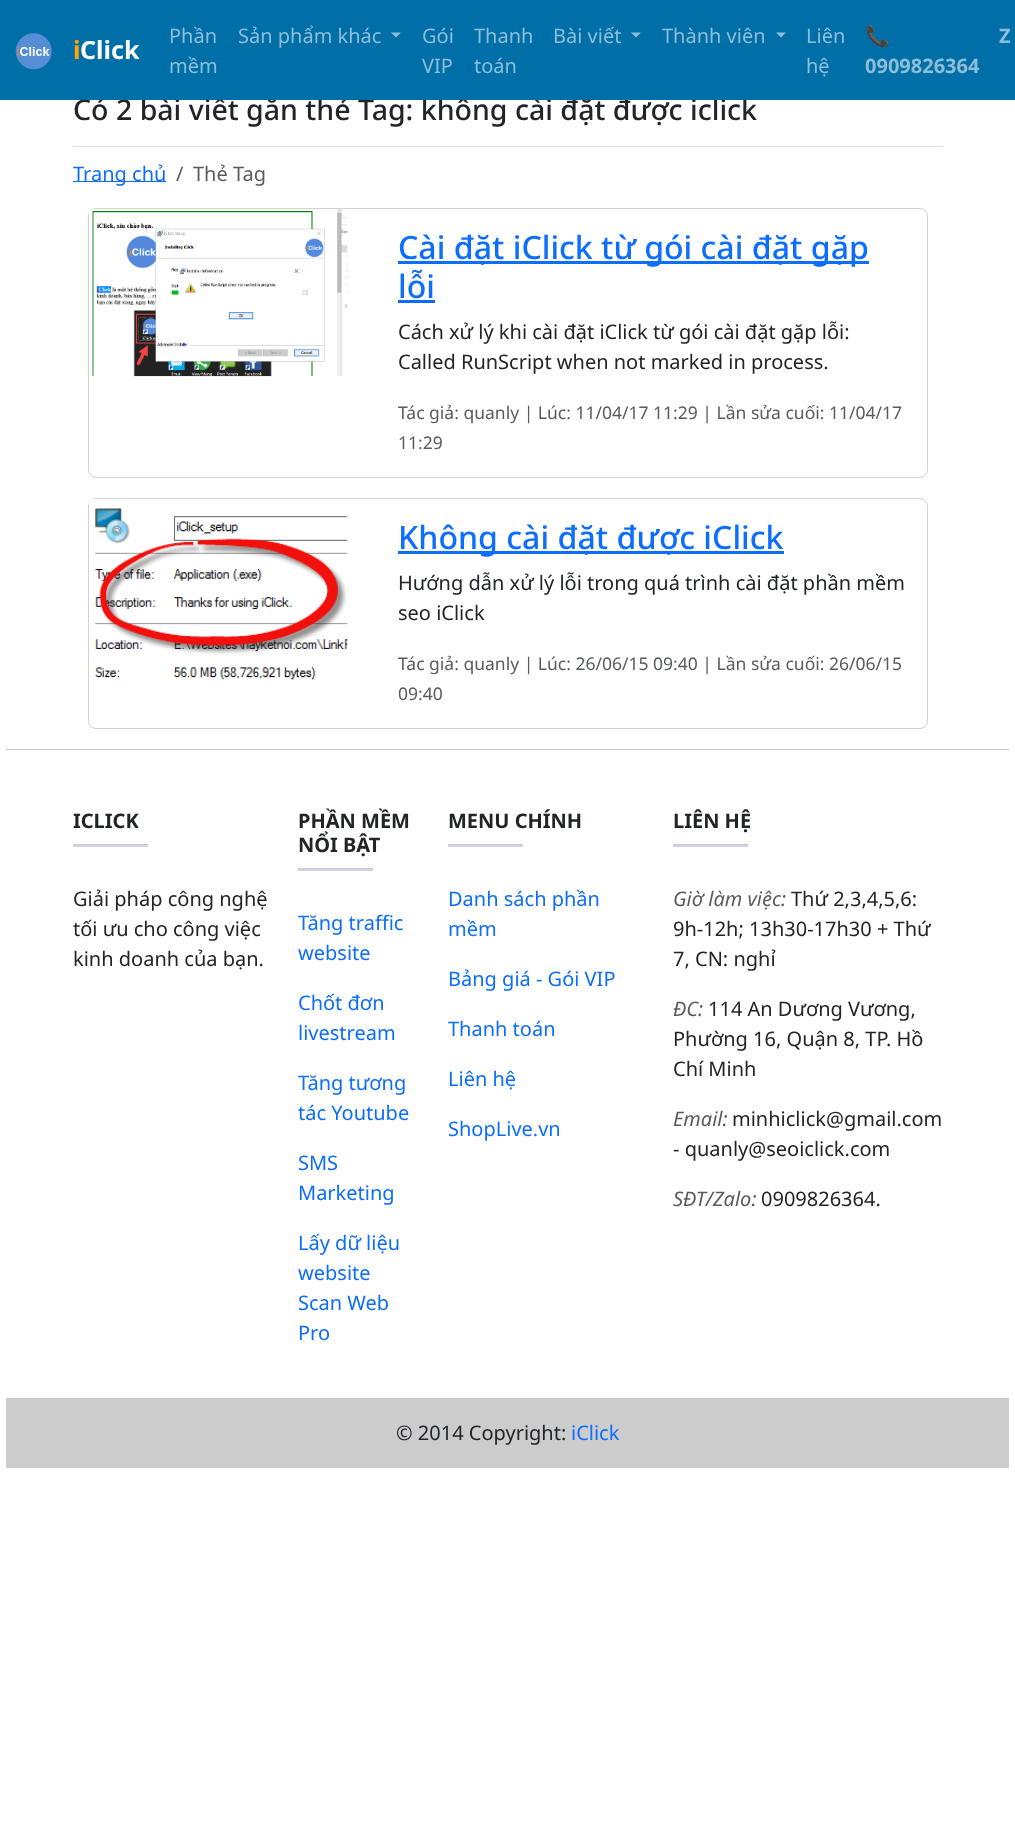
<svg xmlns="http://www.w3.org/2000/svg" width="1015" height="1830">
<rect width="100%" height="100%" fill="#fff"/>
<text x="73" y="120" style="font-family:Noto Sans;font-size:28.5px;font-weight:500;fill:#212529">Có 2 bài viết gắn thẻ Tag: không cài đặt được iclick</text>
<rect width="1015" height="100" fill="#006fa8"/>
<image x="15" y="33" width="37" height="37" href="media/1.png"/>
<text x="73" y="59" style="font-family:Noto Sans;font-size:25px;font-weight:bold;fill:#ffa500">i</text>
<text x="80" y="59" style="font-family:Noto Sans;font-size:25px;font-weight:bold;fill:#fff">Click</text>
<text x="169" y="43" style="font-family:Noto Sans;font-size:20px;fill:#8cbed8">Phần</text>
<text x="169" y="73" style="font-family:Noto Sans;font-size:20px;fill:#8cbed8">mềm</text>
<text x="238" y="43" style="font-family:Noto Sans;font-size:20px;fill:#8cbed8">Sản phẩm khác</text>
<path d="M391 32.5h10l-5 5z" fill="#8cbed8"/>
<text x="422" y="43" style="font-family:Noto Sans;font-size:20px;fill:#8cbed8">Gói</text>
<text x="422" y="73" style="font-family:Noto Sans;font-size:20px;fill:#8cbed8">VIP</text>
<text x="474" y="43" style="font-family:Noto Sans;font-size:20px;fill:#8cbed8">Thanh</text>
<text x="474" y="73" style="font-family:Noto Sans;font-size:20px;fill:#8cbed8">toán</text>
<text x="553" y="43" style="font-family:Noto Sans;font-size:20px;fill:#8cbed8">Bài viết</text>
<path d="M631 32.5h10l-5 5z" fill="#8cbed8"/>
<text x="662" y="43" style="font-family:Noto Sans;font-size:20px;fill:#8cbed8">Thành viên</text>
<path d="M776 32.5h10l-5 5z" fill="#8cbed8"/>
<text x="806" y="43" style="font-family:Noto Sans;font-size:20px;fill:#8cbed8">Liên</text>
<text x="806" y="73" style="font-family:Noto Sans;font-size:20px;fill:#8cbed8">hệ</text>
<text x="865" y="43" style="font-family:Noto Color Emoji;font-size:20px;font-weight:bold;fill:#8cbed8">📞</text>
<text x="865" y="73" style="font-family:Noto Sans;font-size:20px;font-weight:bold;fill:#8cbed8">0909826364</text>
<text x="999" y="43" style="font-family:Noto Sans;font-size:20px;font-weight:bold;fill:#8cbed8">Z</text>
<rect x="73" y="146" width="870" height="1" fill="#dee2e6"/>
<rect x="73" y="181" width="93" height="1" fill="#0d6efd"/>
<text x="73" y="181" style="font-family:Noto Sans;font-size:20px;fill:#0d6efd">Trang chủ</text>
<text x="176" y="181" style="font-family:Noto Sans;font-size:20px;fill:#595c5f">/</text>
<text x="193" y="181" style="font-family:Noto Sans;font-size:20px;fill:#595c5f">Thẻ Tag</text>
<rect x="88.5" y="208.5" width="839" height="269" rx="7.5" fill="none" stroke="#d2d2d2"/>
<image x="89" y="209" width="259" height="168" href="media/2.png"/>
<rect x="398" y="261" width="471" height="3" fill="#0d6efd"/>
<text x="398" y="259" style="font-family:Noto Sans;font-size:32.1px;font-weight:500;fill:#0d6efd">Cài đặt iClick từ gói cài đặt gặp</text>
<text x="398" y="298" style="font-family:Noto Sans;font-size:32.1px;font-weight:500;fill:#0d6efd">lỗi</text>
<rect x="398" y="300" width="37" height="3" fill="#0d6efd"/>
<text x="398" y="339" style="font-family:Noto Sans;font-size:20px;fill:#212529">Cách xử lý khi cài đặt iClick từ gói cài đặt gặp lỗi:</text>
<text x="398" y="369" style="font-family:Noto Sans;font-size:20px;fill:#212529">Called RunScript when not marked in process.</text>
<text x="398" y="419" style="font-family:Noto Sans;font-size:17.5px;fill:#595c5f">Tác giả: quanly | Lúc: 11/04/17 11:29 | Lần sửa cuối: 11/04/17</text>
<text x="398" y="449" style="font-family:Noto Sans;font-size:17.5px;fill:#595c5f">11:29</text>
<rect x="88.5" y="498.5" width="839" height="230" rx="7.5" fill="none" stroke="#d2d2d2"/>
<image x="89" y="499" width="259" height="181" href="media/3.png"/>
<rect x="398" y="551" width="386" height="3" fill="#0d6efd"/>
<text x="398" y="549" style="font-family:Noto Sans;font-size:32.1px;font-weight:500;fill:#0d6efd">Không cài đặt được iClick</text>
<text x="398" y="590" style="font-family:Noto Sans;font-size:20px;fill:#212529">Hướng dẫn xử lý lỗi trong quá trình cài đặt phần mềm</text>
<text x="398" y="620" style="font-family:Noto Sans;font-size:20px;fill:#212529">seo iClick</text>
<text x="398" y="670" style="font-family:Noto Sans;font-size:17.5px;fill:#595c5f">Tác giả: quanly | Lúc: 26/06/15 09:40 | Lần sửa cuối: 26/06/15</text>
<text x="398" y="700" style="font-family:Noto Sans;font-size:17.5px;fill:#595c5f">09:40</text>
<rect x="6" y="749" width="1003" height="1" fill="#c8c9ca"/>
<text x="73" y="828" style="font-family:Noto Sans;font-size:20px;font-weight:bold;fill:#212529">ICLICK</text>
<rect x="73" y="845" width="75" height="2" fill="#d9ceed"/>
<rect x="73" y="844" width="75" height="1" fill="#c8c9ca"/>
<text x="73" y="906" style="font-family:Noto Sans;font-size:20px;fill:#212529">Giải pháp công nghệ</text>
<text x="73" y="936" style="font-family:Noto Sans;font-size:20px;fill:#212529">tối ưu cho công việc</text>
<text x="73" y="966" style="font-family:Noto Sans;font-size:20px;fill:#212529">kinh doanh của bạn.</text>
<text x="298" y="828" style="font-family:Noto Sans;font-size:20px;font-weight:bold;fill:#212529">PHẦN MỀM</text>
<text x="298" y="852" style="font-family:Noto Sans;font-size:20px;font-weight:bold;fill:#212529">NỔI BẬT</text>
<rect x="298" y="869" width="75" height="2" fill="#d9ceed"/>
<rect x="298" y="868" width="75" height="1" fill="#c8c9ca"/>
<text x="298" y="930" style="font-family:Noto Sans;font-size:20px;fill:#0d6efd">Tăng traffic</text>
<text x="298" y="960" style="font-family:Noto Sans;font-size:20px;fill:#0d6efd">website</text>
<text x="298" y="1010" style="font-family:Noto Sans;font-size:20px;fill:#0d6efd">Chốt đơn</text>
<text x="298" y="1040" style="font-family:Noto Sans;font-size:20px;fill:#0d6efd">livestream</text>
<text x="298" y="1090" style="font-family:Noto Sans;font-size:20px;fill:#0d6efd">Tăng tương</text>
<text x="298" y="1120" style="font-family:Noto Sans;font-size:20px;fill:#0d6efd">tác Youtube</text>
<text x="298" y="1170" style="font-family:Noto Sans;font-size:20px;fill:#0d6efd">SMS</text>
<text x="298" y="1200" style="font-family:Noto Sans;font-size:20px;fill:#0d6efd">Marketing</text>
<text x="298" y="1250" style="font-family:Noto Sans;font-size:20px;fill:#0d6efd">Lấy dữ liệu</text>
<text x="298" y="1280" style="font-family:Noto Sans;font-size:20px;fill:#0d6efd">website</text>
<text x="298" y="1310" style="font-family:Noto Sans;font-size:20px;fill:#0d6efd">Scan Web</text>
<text x="298" y="1340" style="font-family:Noto Sans;font-size:20px;fill:#0d6efd">Pro</text>
<text x="448" y="828" style="font-family:Noto Sans;font-size:20px;font-weight:bold;fill:#212529">MENU CHÍNH</text>
<rect x="448" y="845" width="75" height="2" fill="#d9ceed"/>
<rect x="448" y="844" width="75" height="1" fill="#c8c9ca"/>
<text x="448" y="906" style="font-family:Noto Sans;font-size:20px;fill:#0d6efd">Danh sách phần</text>
<text x="448" y="936" style="font-family:Noto Sans;font-size:20px;fill:#0d6efd">mềm</text>
<text x="448" y="986" style="font-family:Noto Sans;font-size:20px;fill:#0d6efd">Bảng giá - Gói VIP</text>
<text x="448" y="1036" style="font-family:Noto Sans;font-size:20px;fill:#0d6efd">Thanh toán</text>
<text x="448" y="1086" style="font-family:Noto Sans;font-size:20px;fill:#0d6efd">Liên hệ</text>
<text x="448" y="1136" style="font-family:Noto Sans;font-size:20px;fill:#0d6efd">ShopLive.vn</text>
<text x="673" y="828" style="font-family:Noto Sans;font-size:20px;font-weight:bold;fill:#212529">LIÊN HỆ</text>
<rect x="673" y="845" width="75" height="2" fill="#d9ceed"/>
<rect x="673" y="844" width="75" height="1" fill="#c8c9ca"/>
<text x="673" y="906" style="font-family:Noto Sans;font-size:20px;font-style:italic;fill:#595c5f">Giờ làm việc:</text>
<text x="791" y="906" style="font-family:Noto Sans;font-size:20px;fill:#212529">Thứ 2,3,4,5,6:</text>
<text x="673" y="936" style="font-family:Noto Sans;font-size:20px;fill:#212529">9h-12h; 13h30-17h30 + Thứ</text>
<text x="673" y="966" style="font-family:Noto Sans;font-size:20px;fill:#212529">7, CN: nghỉ</text>
<text x="673" y="1016" style="font-family:Noto Sans;font-size:20px;font-style:italic;fill:#595c5f">ĐC:</text>
<text x="708" y="1016" style="font-family:Noto Sans;font-size:20px;fill:#212529">114 An Dương Vương,</text>
<text x="673" y="1046" style="font-family:Noto Sans;font-size:20px;fill:#212529">Phường 16, Quận 8, TP. Hồ</text>
<text x="673" y="1076" style="font-family:Noto Sans;font-size:20px;fill:#212529">Chí Minh</text>
<text x="673" y="1126" style="font-family:Noto Sans;font-size:20px;font-style:italic;fill:#595c5f">Email:</text>
<text x="732" y="1126" style="font-family:Noto Sans;font-size:20px;fill:#212529">minhiclick@gmail.com</text>
<text x="673" y="1156" style="font-family:Noto Sans;font-size:20px;fill:#212529">- quanly@seoiclick.com</text>
<text x="673" y="1206" style="font-family:Noto Sans;font-size:20px;font-style:italic;fill:#595c5f">SĐT/Zalo:</text>
<text x="761" y="1206" style="font-family:Noto Sans;font-size:20px;fill:#212529">0909826364.</text>
<rect x="6" y="1398" width="1003" height="70" fill="#ccc"/>
<text x="396" y="1440" style="font-family:Noto Sans;font-size:20px;fill:#212529">© 2014 Copyright:</text>
<text x="571" y="1440" style="font-family:Noto Sans;font-size:20px;fill:#0d6efd">iClick</text>
</svg>
